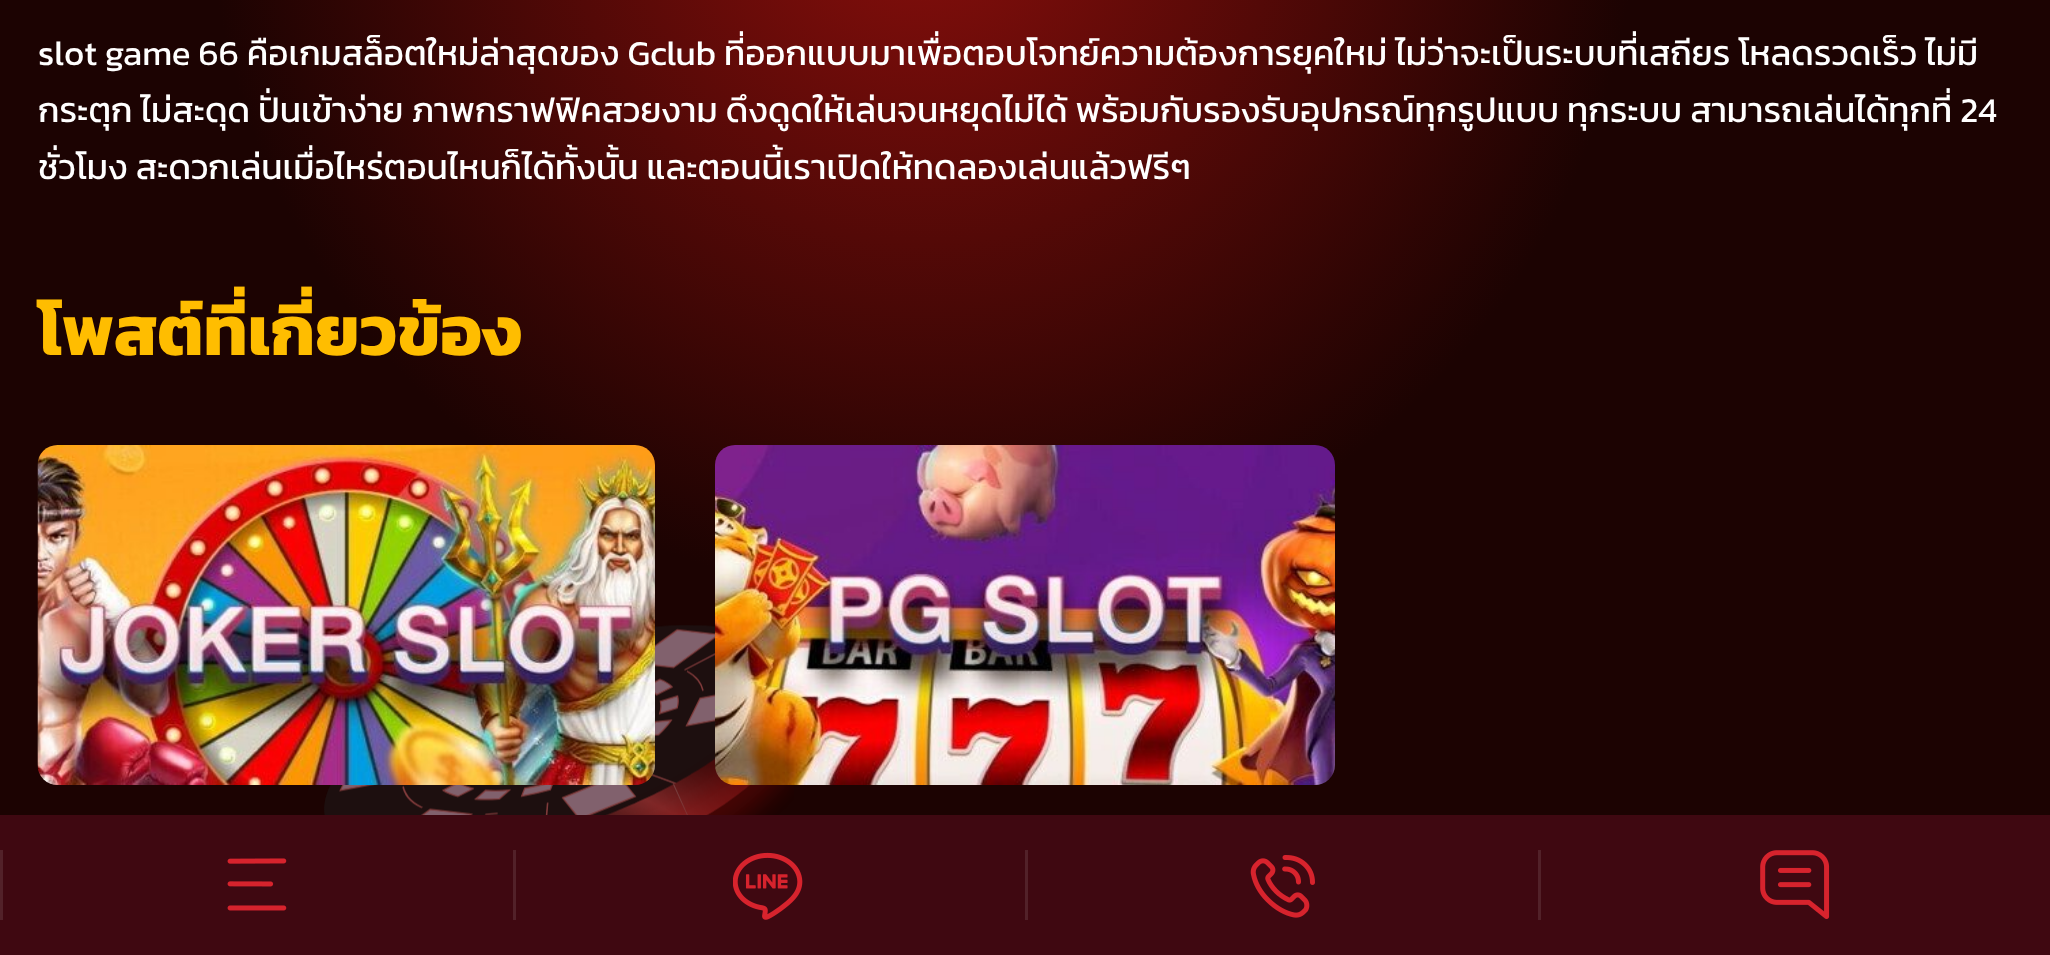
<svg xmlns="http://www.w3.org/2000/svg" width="2050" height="955">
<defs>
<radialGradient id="g1" gradientUnits="userSpaceOnUse" cx="923" cy="-115" r="1554"><stop offset="0" stop-color="#8b0f0c"/><stop offset="0.46" stop-color="#1c0302"/></radialGradient>
<clipPath id="clip1"><rect x="38" width="1975" height="235"/></clipPath>
</defs>
<rect width="100%" height="100%" fill="#fff"/>
<rect width="2050" height="815" fill="url(#g1)"/>
<text x="38" y="65" style="font-family:Kanit;font-size:35px;fill:#fff">slot game 66 คือเกมสล็อตใหม่ล่าสุดของ Gclub ที่ออกแบบมาเพื่อตอบโจทย์ความต้องการยุคใหม่ ไม่ว่าจะเป็นระบบที่เสถียร โหลดรวดเร็ว ไม่มี</text>
<text x="38" y="122" style="font-family:Kanit;font-size:35px;fill:#fff">กระตุก ไม่สะดุด ปั่นเข้าง่าย ภาพกราฟฟิคสวยงาม ดึงดูดให้เล่นจนหยุดไม่ได้ พร้อมกับรองรับอุปกรณ์ทุกรูปแบบ ทุกระบบ สามารถเล่นได้ทุกที่ 24</text>
<g clip-path="url(#clip1)">
<text x="38" y="179" style="font-family:Kanit;font-size:35px;fill:#fff">ชั่วโมง สะดวกเล่นเมื่อไหร่ตอนไหนก็ได้ทั้งนั้น และตอนนี้เราเปิดให้ทดลองเล่นแล้วฟรีๆ</text>
</g>
<text x="38" y="355" style="font-family:Kanit;font-size:70px;font-weight:bold;fill:#ffbd00">โพสต์ที่เกี่ยวข้อง</text>
<image x="324" y="625" width="470" height="190" href="media/3.png"/>
<image x="37" y="445" width="618" height="340" href="media/1.png"/>
<image x="715" y="445" width="620" height="340" href="media/2.png"/>
<rect y="815" width="2050" height="140" fill="#3f0811"/>
<rect y="850" width="3" height="70" fill="#522129"/>
<image x="227" y="858" width="60" height="53" href="media/4.png"/>
<rect x="513" y="850" width="3" height="70" fill="#522129"/>
<image x="733" y="852" width="70" height="68" href="media/5.png"/>
<rect x="1025" y="850" width="3" height="70" fill="#522129"/>
<image x="1250" y="855" width="65" height="63" href="media/6.png"/>
<rect x="1538" y="850" width="3" height="70" fill="#522129"/>
<image x="1760" y="850" width="70" height="69" href="media/7.png"/>
</svg>
